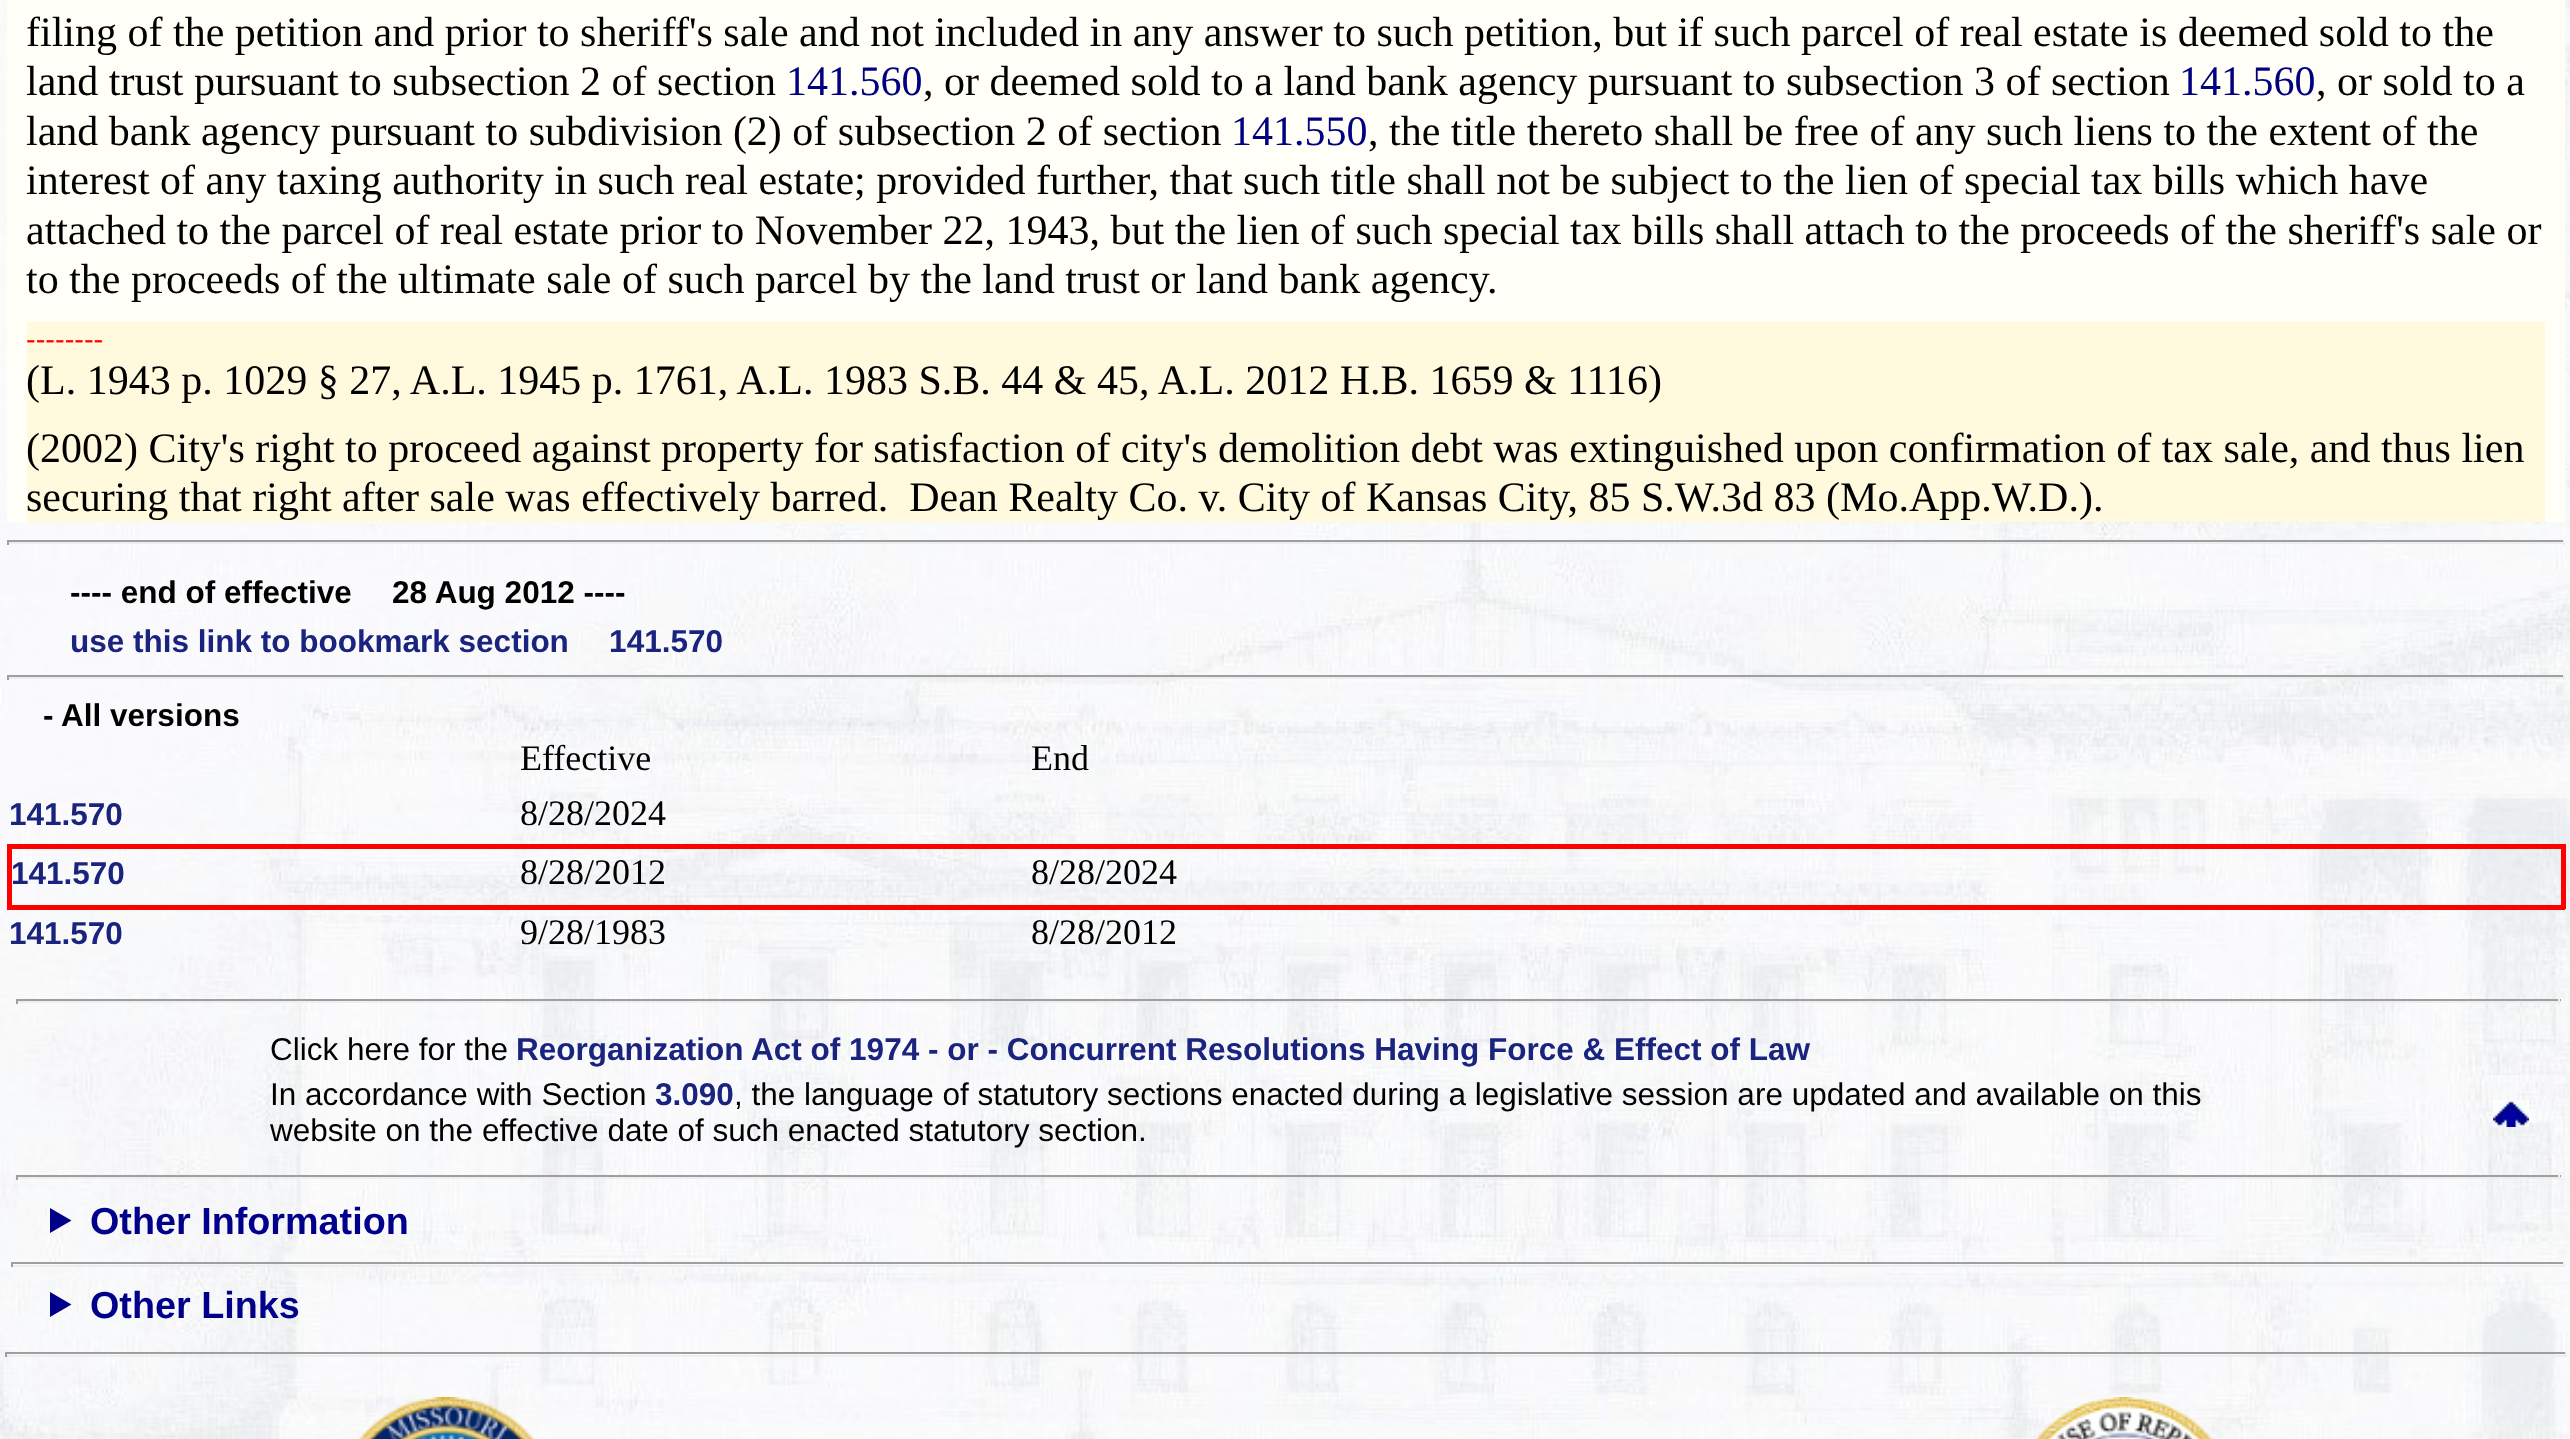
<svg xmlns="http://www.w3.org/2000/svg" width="2570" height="1439">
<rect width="100%" height="100%" fill="#fff"/>
<image x="0" y="0" width="2570" height="1439" href="media/1.png"/>
<rect x="7" width="2558" height="522" fill="#fffff7"/>
<text x="26" y="46" style="font-family:Liberation Serif;font-size:42px;fill:#000">filing of the petition and prior to sheriff's sale and not included in any answer to such petition, but if such parcel of real estate is deemed sold to the</text>
<text x="26" y="95" style="font-family:Liberation Serif;font-size:42px;fill:#000">land trust pursuant to subsection 2 of section</text>
<text x="786" y="95" style="font-family:Liberation Serif;font-size:42px;fill:#000080">141.560</text>
<text x="923" y="95" style="font-family:Liberation Serif;font-size:42px;fill:#000">, or deemed sold to a land bank agency pursuant to subsection 3 of section</text>
<text x="2179" y="95" style="font-family:Liberation Serif;font-size:42px;fill:#000080">141.560</text>
<text x="2316" y="95" style="font-family:Liberation Serif;font-size:42px;fill:#000">, or sold to a</text>
<text x="26" y="145" style="font-family:Liberation Serif;font-size:42px;fill:#000">land bank agency pursuant to subdivision (2) of subsection 2 of section</text>
<text x="1231" y="145" style="font-family:Liberation Serif;font-size:42px;fill:#000080">141.550</text>
<text x="1368" y="145" style="font-family:Liberation Serif;font-size:42px;fill:#000">, the title thereto shall be free of any such liens to the extent of the</text>
<text x="26" y="194" style="font-family:Liberation Serif;font-size:42px;fill:#000">interest of any taxing authority in such real estate; provided further, that such title shall not be subject to the lien of special tax bills which have</text>
<text x="26" y="244" style="font-family:Liberation Serif;font-size:42px;fill:#000">attached to the parcel of real estate prior to November 22, 1943, but the lien of such special tax bills shall attach to the proceeds of the sheriff's sale or</text>
<text x="26" y="293" style="font-family:Liberation Serif;font-size:42px;fill:#000">to the proceeds of the ultimate sale of such parcel by the land trust or land bank agency.</text>
<rect x="27" y="322" width="2518" height="200" fill="#fffade"/>
<text x="26" y="349" style="font-family:Liberation Sans;font-size:29px;fill:#f00">--------</text>
<text x="26" y="394" style="font-family:Liberation Serif;font-size:42px;fill:#000">(L. 1943 p. 1029 § 27, A.L. 1945 p. 1761, A.L. 1983 S.B. 44 &amp; 45, A.L. 2012 H.B. 1659 &amp; 1116)</text>
<text x="26" y="462" style="font-family:Liberation Serif;font-size:42px;fill:#000">(2002) City's right to proceed against property for satisfaction of city's demolition debt was extinguished upon confirmation of tax sale, and thus lien</text>
<text x="26" y="511" style="font-family:Liberation Serif;font-size:42px;fill:#000" xml:space="preserve">securing that right after sale was effectively barred.  Dean Realty Co. v. City of Kansas City, 85 S.W.3d 83 (Mo.App.W.D.).</text>
<rect x="7" y="540" width="2558" height="2" fill="#9f9f9f"/>
<rect x="2563" y="540" width="2" height="5" fill="#eee"/>
<rect x="7" y="542" width="2558" height="2" fill="#eee"/>
<rect x="7" y="540" width="2" height="5" fill="#9f9f9f"/>
<text x="70" y="603" style="font-family:Liberation Sans;font-size:31.5px;font-weight:bold;fill:#000">---- end of effective  28 Aug 2012 ----</text>
<text x="70" y="652" style="font-family:Liberation Sans;font-size:31.5px;font-weight:bold;fill:#1a237e">use this link to bookmark section  141.570</text>
<rect x="7" y="675" width="2558" height="2" fill="#9f9f9f"/>
<rect x="2563" y="675" width="2" height="5" fill="#eee"/>
<rect x="7" y="677" width="2558" height="2" fill="#eee"/>
<rect x="7" y="675" width="2" height="5" fill="#9f9f9f"/>
<text x="43" y="726" style="font-family:Liberation Sans;font-size:31.5px;font-weight:bold;fill:#000">- All versions</text>
<text x="520" y="770" style="font-family:Liberation Serif;font-size:36px;fill:#000">Effective</text>
<text x="1031" y="770" style="font-family:Liberation Serif;font-size:36px;fill:#000">End</text>
<text x="9" y="825" style="font-family:Liberation Sans;font-size:31.5px;font-weight:bold;fill:#1a237e">141.570</text>
<text x="520" y="825" style="font-family:Liberation Serif;font-size:36px;fill:#000">8/28/2024</text>
<rect x="7" y="844" width="2558" height="5" fill="#f00"/>
<rect x="2561" y="844" width="5" height="65" fill="#f00"/>
<rect x="7" y="905" width="2558" height="5" fill="#f00"/>
<rect x="7" y="844" width="5" height="65" fill="#f00"/>
<text x="11" y="884" style="font-family:Liberation Sans;font-size:31.5px;font-weight:bold;fill:#1a237e">141.570</text>
<text x="520" y="884" style="font-family:Liberation Serif;font-size:36px;fill:#000">8/28/2012</text>
<text x="1031" y="884" style="font-family:Liberation Serif;font-size:36px;fill:#000">8/28/2024</text>
<text x="9" y="944" style="font-family:Liberation Sans;font-size:31.5px;font-weight:bold;fill:#1a237e">141.570</text>
<text x="520" y="944" style="font-family:Liberation Serif;font-size:36px;fill:#000">9/28/1983</text>
<text x="1031" y="944" style="font-family:Liberation Serif;font-size:36px;fill:#000">8/28/2012</text>
<rect x="16" y="999" width="2545" height="2" fill="#9f9f9f"/>
<rect x="2558" y="999" width="2" height="5" fill="#eee"/>
<rect x="16" y="1001" width="2545" height="2" fill="#eee"/>
<rect x="16" y="999" width="2" height="5" fill="#9f9f9f"/>
<text x="270" y="1060" style="font-family:Liberation Sans;font-size:31.5px;fill:#000">Click here for the</text>
<text x="516" y="1060" style="font-family:Liberation Sans;font-size:31.5px;font-weight:bold;fill:#1a237e">Reorganization Act of 1974 - or - Concurrent Resolutions Having Force &amp; Effect of Law</text>
<text x="270" y="1105" style="font-family:Liberation Sans;font-size:31.5px;fill:#000">In accordance with Section</text>
<text x="655" y="1105" style="font-family:Liberation Sans;font-size:31.5px;font-weight:bold;fill:#1a237e">3.090</text>
<text x="734" y="1105" style="font-family:Liberation Sans;font-size:31.5px;fill:#000">, the language of statutory sections enacted during a legislative session are updated and available on this</text>
<text x="270" y="1141" style="font-family:Liberation Sans;font-size:31.5px;fill:#000">website on the effective date of such enacted statutory section.</text>
<image x="2493" y="1100" width="36" height="27" href="media/2.png"/>
<rect x="16" y="1175" width="2545" height="2" fill="#9f9f9f"/>
<rect x="2558" y="1175" width="2" height="5" fill="#eee"/>
<rect x="16" y="1177" width="2545" height="2" fill="#eee"/>
<rect x="16" y="1175" width="2" height="5" fill="#9f9f9f"/>
<path d="M50 1208l21.5 12.5l-21.5 12.5z" fill="#00008b"/>
<text x="90" y="1234" style="font-family:Liberation Sans;font-size:37.75px;font-weight:bold;fill:#00008b">Other Information</text>
<rect x="11" y="1262" width="2554" height="2" fill="#9f9f9f"/>
<rect x="2563" y="1262" width="2" height="5" fill="#eee"/>
<rect x="11" y="1265" width="2554" height="2" fill="#eee"/>
<rect x="11" y="1262" width="2" height="5" fill="#9f9f9f"/>
<path d="M50 1292l21.5 12.5l-21.5 12.5z" fill="#00008b"/>
<text x="90" y="1318" style="font-family:Liberation Sans;font-size:37.75px;font-weight:bold;fill:#00008b">Other Links</text>
<rect x="5" y="1352" width="2562" height="2" fill="#9f9f9f"/>
<rect x="2565" y="1352" width="2" height="5" fill="#eee"/>
<rect x="5" y="1355" width="2562" height="2" fill="#eee"/>
<rect x="5" y="1352" width="2" height="5" fill="#9f9f9f"/>
<image x="357" y="1397" width="178" height="42" href="media/3.png"/>
<image x="2035" y="1397" width="178" height="42" href="media/4.png"/>
</svg>
